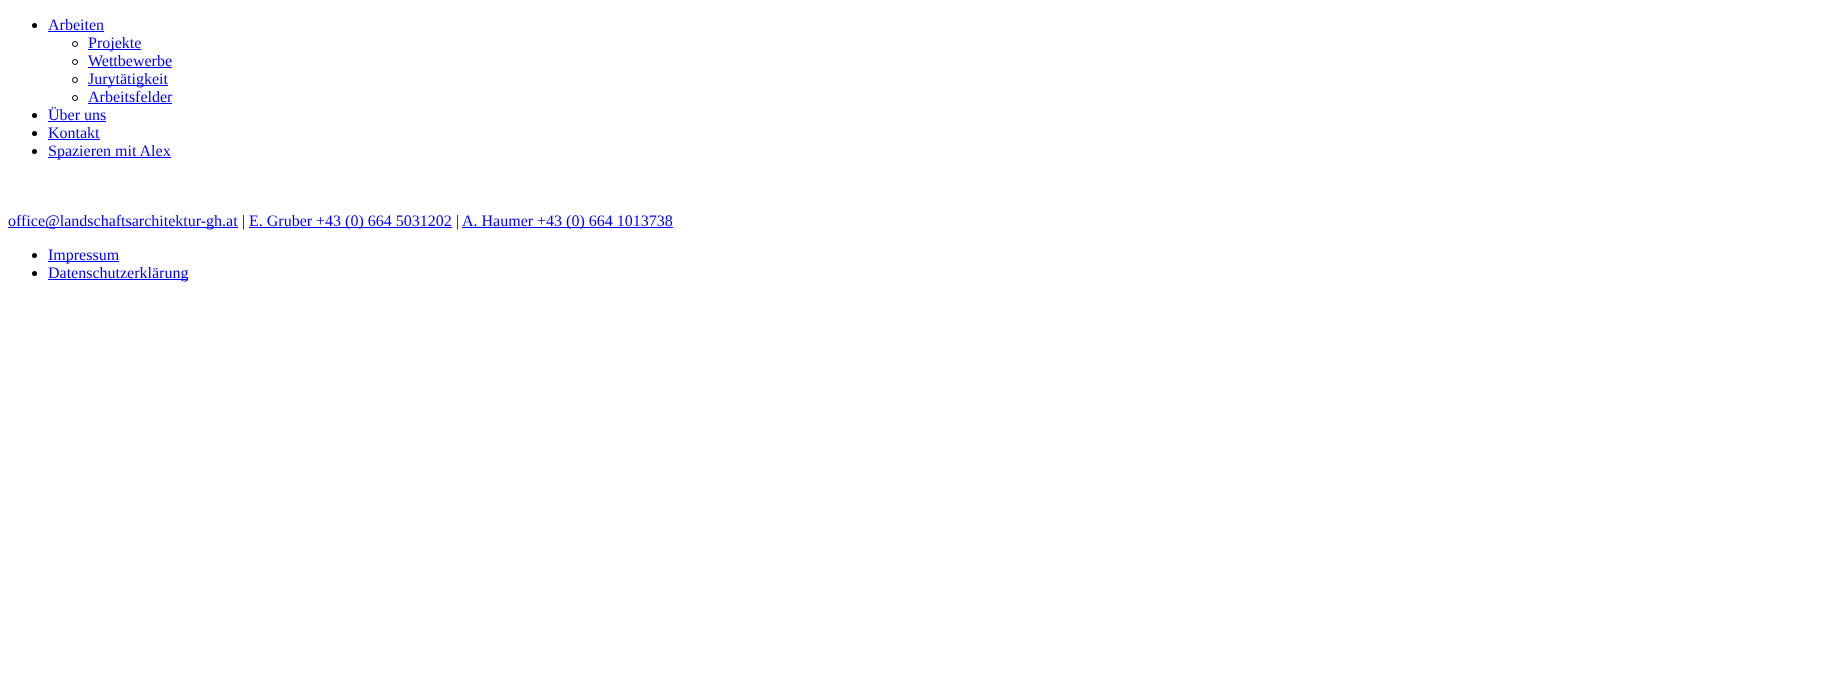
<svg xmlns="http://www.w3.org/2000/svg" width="1831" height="692">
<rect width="100%" height="100%" fill="#fff"/>
<circle cx="34.5" cy="25.5" r="2.5" fill="#000"/>
<text x="48" y="30" style="font-family:Liberation Serif;font-size:16px;fill:#00e">Arbeiten</text>
<rect x="48" y="31" width="56" height="1" fill="#00e"/>
<circle cx="75" cy="44" r="2.5" fill="none" stroke="#000"/>
<rect x="88" y="49" width="53" height="1" fill="#00e"/>
<text x="88" y="48" style="font-family:Liberation Serif;font-size:16px;fill:#00e">Projekte</text>
<circle cx="75" cy="62" r="2.5" fill="none" stroke="#000"/>
<text x="88" y="66" style="font-family:Liberation Serif;font-size:16px;fill:#00e">Wettbewerbe</text>
<rect x="88" y="67" width="84" height="1" fill="#00e"/>
<circle cx="75" cy="80" r="2.5" fill="none" stroke="#000"/>
<rect x="88" y="85" width="80" height="1" fill="#00e"/>
<text x="88" y="84" style="font-family:Liberation Serif;font-size:16px;fill:#00e">Jurytätigkeit</text>
<circle cx="75" cy="98" r="2.5" fill="none" stroke="#000"/>
<text x="88" y="102" style="font-family:Liberation Serif;font-size:16px;fill:#00e">Arbeitsfelder</text>
<rect x="88" y="103" width="84" height="1" fill="#00e"/>
<circle cx="34.5" cy="115.5" r="2.5" fill="#000"/>
<text x="48" y="120" style="font-family:Liberation Serif;font-size:16px;fill:#00e">Über uns</text>
<rect x="48" y="121" width="58" height="1" fill="#00e"/>
<circle cx="34.5" cy="133.5" r="2.5" fill="#000"/>
<text x="48" y="138" style="font-family:Liberation Serif;font-size:16px;fill:#00e">Kontakt</text>
<rect x="48" y="139" width="52" height="1" fill="#00e"/>
<circle cx="34.5" cy="151.5" r="2.5" fill="#000"/>
<rect x="48" y="157" width="123" height="1" fill="#00e"/>
<text x="48" y="156" style="font-family:Liberation Serif;font-size:16px;fill:#00e">Spazieren mit Alex</text>
<rect x="8" y="227" width="230" height="1" fill="#00e"/>
<text x="8" y="226" style="font-family:Liberation Serif;font-size:16px;fill:#00e">office@landschaftsarchitektur-gh.at</text>
<text x="242" y="226" style="font-family:Liberation Serif;font-size:16px;fill:#000">|</text>
<rect x="249" y="227" width="203" height="1" fill="#00e"/>
<text x="249" y="226" style="font-family:Liberation Serif;font-size:16px;fill:#00e">E. Gruber +43 (0) 664 5031202</text>
<text x="456" y="226" style="font-family:Liberation Serif;font-size:16px;fill:#000">|</text>
<rect x="462" y="227" width="211" height="1" fill="#00e"/>
<text x="462" y="226" style="font-family:Liberation Serif;font-size:16px;fill:#00e">A. Haumer +43 (0) 664 1013738</text>
<circle cx="34.5" cy="255.5" r="2.5" fill="#000"/>
<rect x="48" y="261" width="71" height="1" fill="#00e"/>
<text x="48" y="260" style="font-family:Liberation Serif;font-size:16px;fill:#00e">Impressum</text>
<circle cx="34.5" cy="273.5" r="2.5" fill="#000"/>
<rect x="48" y="279" width="140" height="1" fill="#00e"/>
<text x="48" y="278" style="font-family:Liberation Serif;font-size:16px;fill:#00e">Datenschutzerklärung</text>
</svg>
